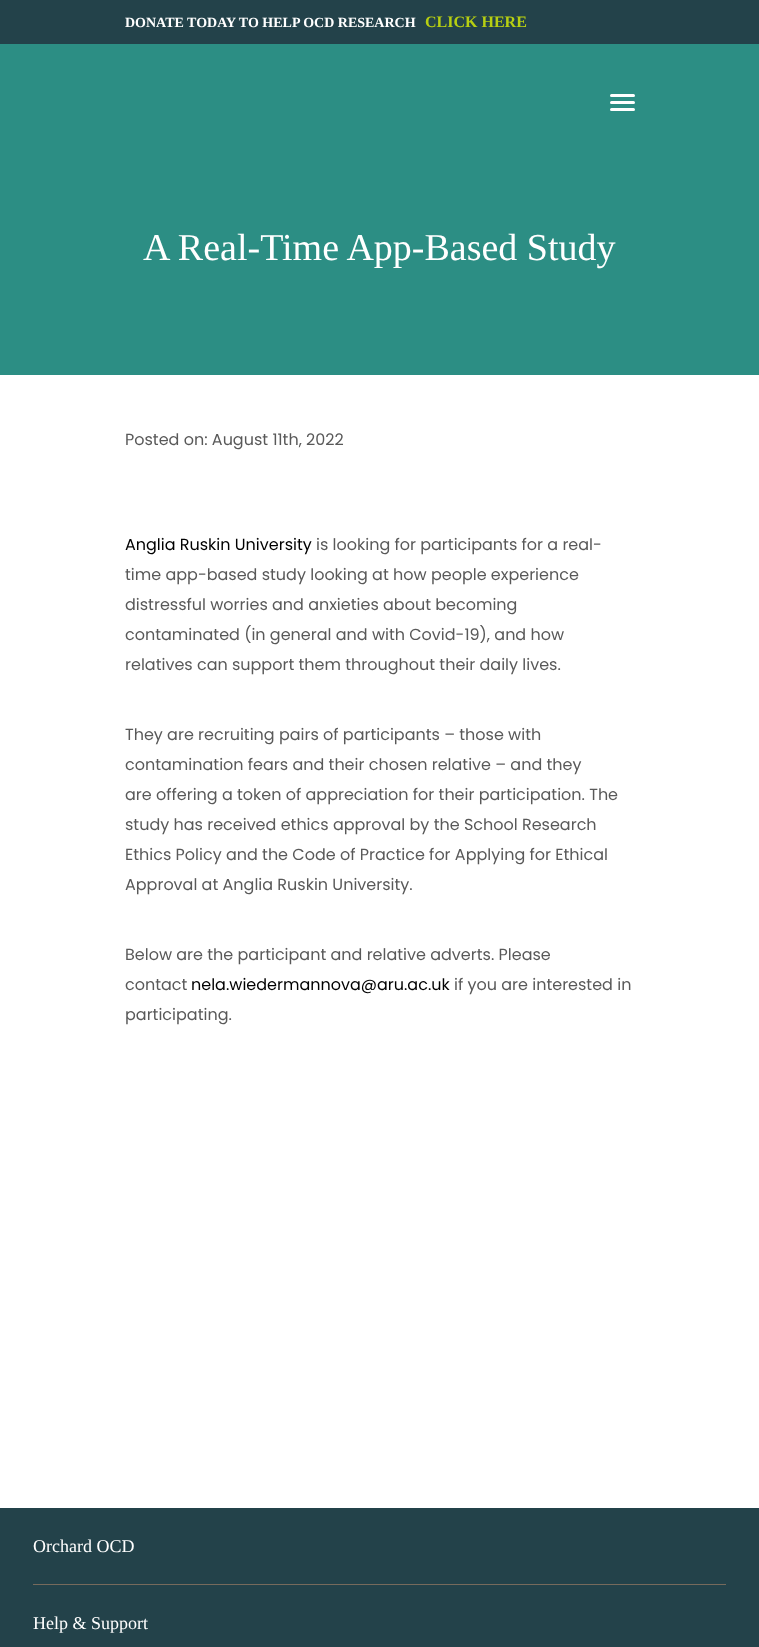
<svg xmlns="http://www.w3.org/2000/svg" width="759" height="1647">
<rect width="100%" height="100%" fill="#fff"/>
<rect width="759" height="44" fill="#23424a"/>
<text x="125" y="27" style="font-family:Liberation Serif;font-size:14px;font-weight:bold;fill:#fff">DONATE TODAY TO HELP OCD RESEARCH</text>
<text x="425" y="27" style="font-family:Liberation Serif;font-size:16px;font-weight:bold;fill:#b7cf12">CLICK HERE</text>
<rect y="44" width="759" height="331" fill="#2c8e84"/>
<rect x="610" y="94" width="25" height="3" rx="1.5" fill="#fff"/>
<rect x="610" y="101" width="25" height="3" rx="1.5" fill="#fff"/>
<rect x="610" y="108" width="25" height="3" rx="1.5" fill="#fff"/>
<text x="143" y="260" style="font-family:Liberation Serif;font-size:38px;fill:#fff">A Real-Time App-Based Study</text>
<text x="125" y="445" style="font-family:Poppins;font-size:16px;fill:#595959">Posted on: August 11th, 2022</text>
<text x="125" y="550" style="font-family:Poppins;font-size:16px;fill:#000">Anglia Ruskin University</text>
<text x="316" y="550" style="font-family:Poppins;font-size:16px;fill:#595959">is looking for participants for a real-</text>
<text x="125" y="580" style="font-family:Poppins;font-size:16px;fill:#595959">time app-based study looking at how people experience</text>
<text x="125" y="610" style="font-family:Poppins;font-size:16px;fill:#595959">distressful worries and anxieties about becoming</text>
<text x="125" y="640" style="font-family:Poppins;font-size:16px;fill:#595959">contaminated (in general and with Covid-19), and how</text>
<text x="125" y="670" style="font-family:Poppins;font-size:16px;fill:#595959">relatives can support them throughout their daily lives.</text>
<text x="125" y="740" style="font-family:Poppins;font-size:16px;fill:#595959">They are recruiting pairs of participants – those with</text>
<text x="125" y="770" style="font-family:Poppins;font-size:16px;fill:#595959">contamination fears and their chosen relative – and they</text>
<text x="125" y="800" style="font-family:Poppins;font-size:16px;fill:#595959">are offering a token of appreciation for their participation. The</text>
<text x="125" y="830" style="font-family:Poppins;font-size:16px;fill:#595959">study has received ethics approval by the School Research</text>
<text x="125" y="860" style="font-family:Poppins;font-size:16px;fill:#595959">Ethics Policy and the Code of Practice for Applying for Ethical</text>
<text x="125" y="890" style="font-family:Poppins;font-size:16px;fill:#595959">Approval at Anglia Ruskin University.</text>
<text x="125" y="960" style="font-family:Poppins;font-size:16px;fill:#595959">Below are the participant and relative adverts. Please</text>
<text x="125" y="990" style="font-family:Poppins;font-size:16px;fill:#595959">contact</text>
<text x="191" y="990" style="font-family:Poppins;font-size:16px;fill:#000">nela.wiedermannova@aru.ac.uk</text>
<text x="454" y="990" style="font-family:Poppins;font-size:16px;fill:#595959">if you are interested in</text>
<text x="125" y="1020" style="font-family:Poppins;font-size:16px;fill:#595959">participating.</text>
<rect y="1508" width="759" height="139" fill="#23424a"/>
<rect x="33" y="1584" width="693" height="1" fill="#766a5c"/>
<text x="33" y="1552" style="font-family:Liberation Serif;font-size:18px;fill:#fff">Orchard OCD</text>
<text x="33" y="1629" style="font-family:Liberation Serif;font-size:18px;fill:#fff">Help &amp; Support</text>
</svg>
